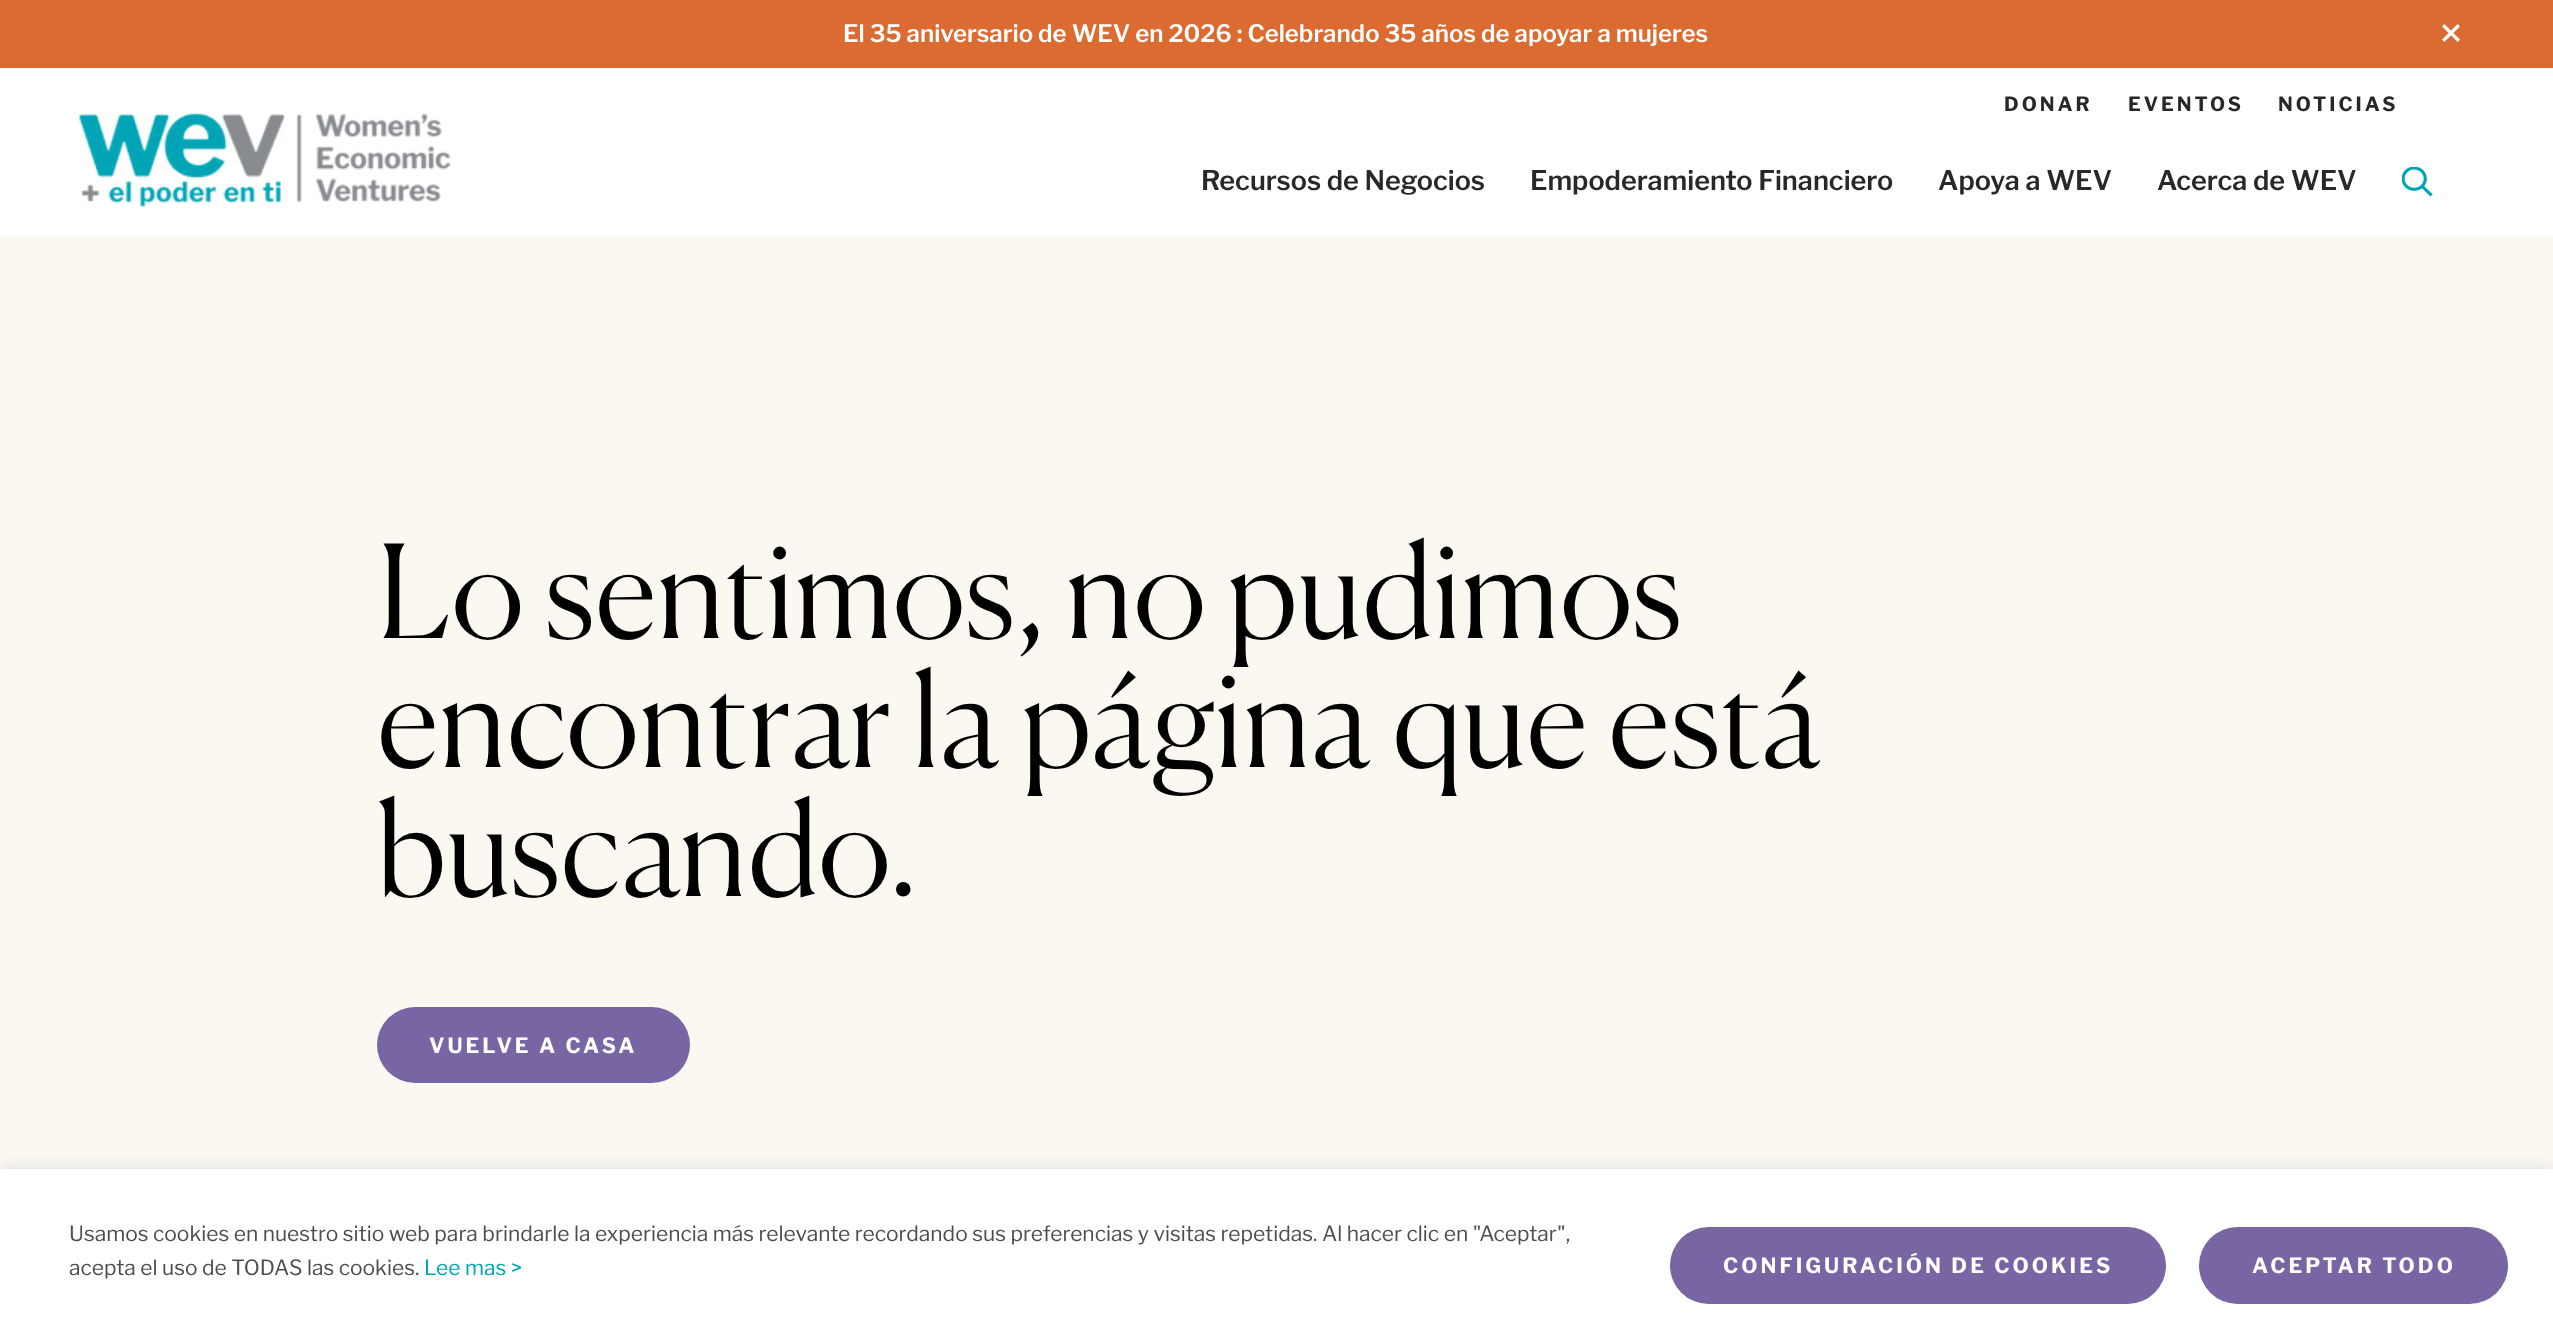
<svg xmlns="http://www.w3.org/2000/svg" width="2553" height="1330">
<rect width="100%" height="100%" fill="#faf8f1"/>
<rect y="68" width="2553" height="168" fill="#fff"/>
<rect width="2553" height="68" fill="#db6b30"/>
<text x="843" y="42" style="font-family:Libre Franklin;font-size:24px;font-weight:600;fill:#fff">El 35 aniversario de WEV en 2026 : Celebrando 35 años de apoyar a mujeres</text>
<image x="2442" y="24" width="18" height="18" href="media/1.png"/>
<image x="79" y="112" width="372" height="95" href="media/2.png"/>
<text x="2004" y="111" style="font-family:Libre Franklin;font-size:19.5px;font-weight:bold;letter-spacing:3px;fill:#282828">DONAR</text>
<text x="2128" y="111" style="font-family:Libre Franklin;font-size:19.5px;font-weight:bold;letter-spacing:3px;fill:#282828">EVENTOS</text>
<text x="2278" y="111" style="font-family:Libre Franklin;font-size:19.5px;font-weight:bold;letter-spacing:3px;fill:#282828">NOTICIAS</text>
<text x="1201" y="190" style="font-family:Libre Franklin;font-size:27px;font-weight:600;fill:#282828">Recursos de Negocios</text>
<text x="1530" y="190" style="font-family:Libre Franklin;font-size:27px;font-weight:600;fill:#282828">Empoderamiento Financiero</text>
<text x="1938" y="190" style="font-family:Libre Franklin;font-size:27px;font-weight:600;fill:#282828">Apoya a WEV</text>
<text x="2157" y="190" style="font-family:Libre Franklin;font-size:27px;font-weight:600;fill:#282828">Acerca de WEV</text>
<image x="2402" y="167" width="31" height="30" href="media/3.png"/>
<text x="377" y="638" style="font-family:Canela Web;font-size:129px;font-weight:300;fill:#000">Lo sentimos, no pudimos</text>
<text x="377" y="767" style="font-family:Canela Web;font-size:129px;font-weight:300;fill:#000">encontrar la página que está</text>
<text x="377" y="896" style="font-family:Canela Web;font-size:129px;font-weight:300;fill:#000">buscando.</text>
<rect x="377" y="1007" width="313" height="76" rx="38" fill="#7765a4"/>
<text x="429" y="1053" style="font-family:Libre Franklin;font-size:21px;font-weight:bold;letter-spacing:3px;fill:#fff">VUELVE A CASA</text>
<rect y="1167" width="2553" height="162" fill="#acabab4d" filter="blur(7.5px)"/>
<rect y="1169" width="2553" height="161" fill="#fff"/>
<text x="69" y="1241" style="font-family:Libre Franklin;font-size:21px;fill:#4d4d4f">Usamos cookies en nuestro sitio web para brindarle la experiencia más relevante recordando sus preferencias y visitas repetidas. Al hacer clic en "Aceptar",</text>
<text x="69" y="1275" style="font-family:Libre Franklin;font-size:21px;fill:#4d4d4f">acepta el uso de TODAS las cookies.</text>
<text x="424" y="1275" style="font-family:Libre Franklin;font-size:21px;fill:#00a5b5">Lee mas &gt;</text>
<rect x="1670" y="1227" width="496" height="77" rx="38.5" fill="#7765a4"/>
<text x="1723" y="1273" style="font-family:Libre Franklin;font-size:21px;font-weight:bold;letter-spacing:3px;fill:#fff">CONFIGURACIÓN DE COOKIES</text>
<rect x="2199" y="1227" width="309" height="77" rx="38.5" fill="#7765a4"/>
<text x="2252" y="1273" style="font-family:Libre Franklin;font-size:21px;font-weight:bold;letter-spacing:3px;fill:#fff">ACEPTAR TODO</text>
</svg>
